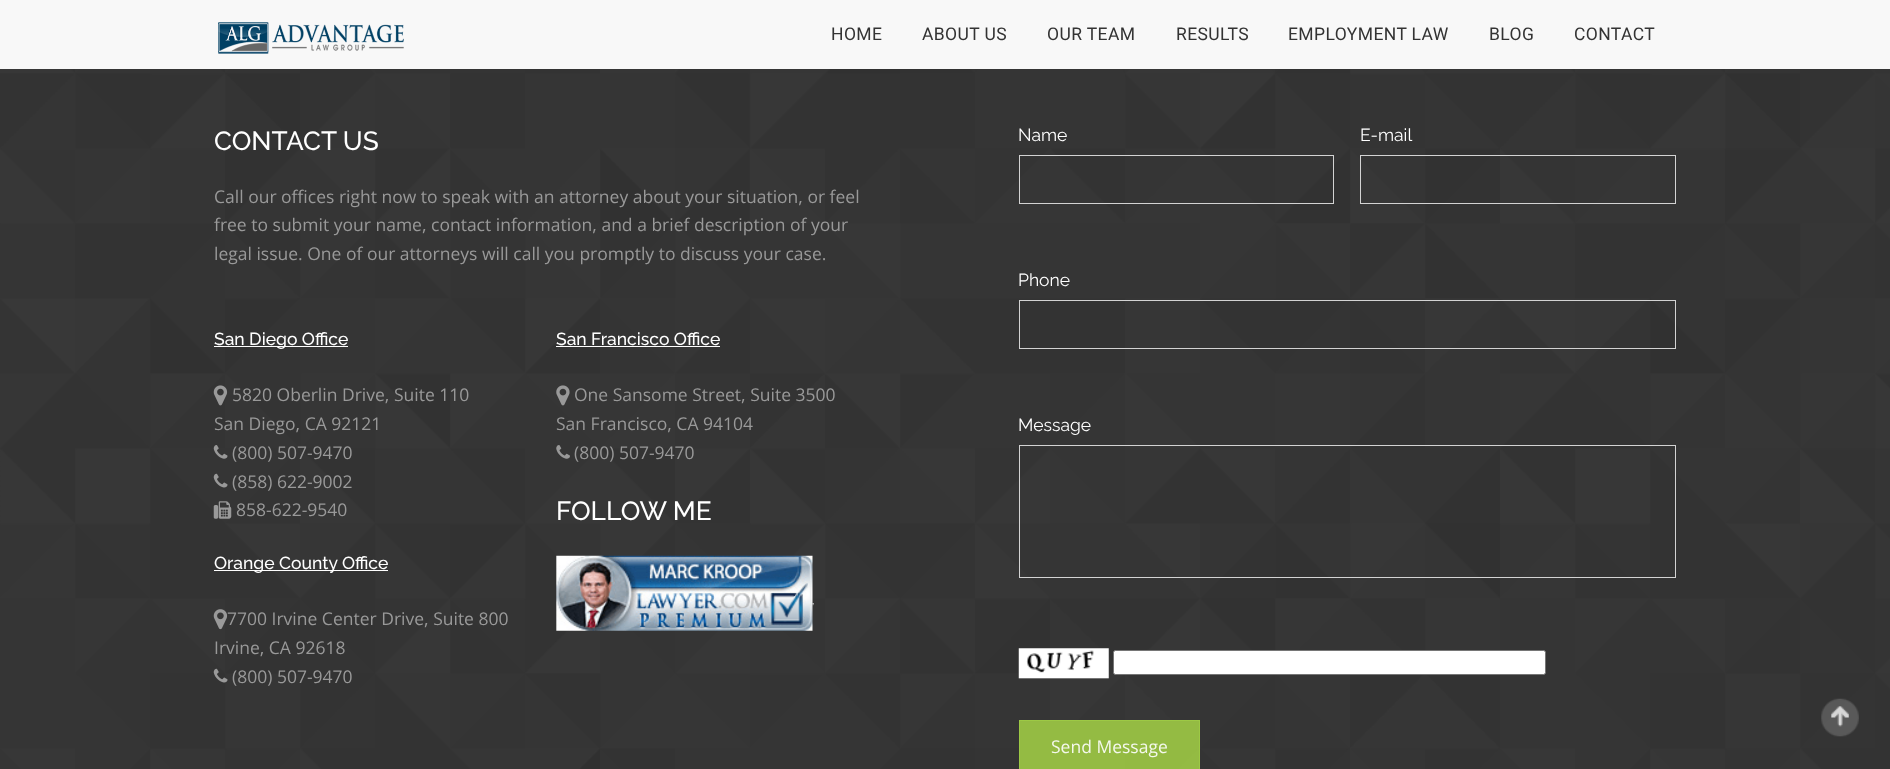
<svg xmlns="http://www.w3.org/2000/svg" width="1890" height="769">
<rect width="100%" height="100%" fill="#fff"/>
<image x="0" y="0" width="1890" height="769" href="media/2.png"/>
<rect width="1890" height="69" fill="#fffffff7"/>
<image x="218" y="22" width="186" height="32" href="media/1.png"/>
<text x="831" y="40" style="font-family:Roboto;font-size:17.5px;letter-spacing:0.4px;fill:#333">HOME</text>
<text x="922" y="40" style="font-family:Roboto;font-size:17.5px;letter-spacing:0.4px;fill:#333">ABOUT US</text>
<text x="1047" y="40" style="font-family:Roboto;font-size:17.5px;letter-spacing:0.4px;fill:#333">OUR TEAM</text>
<text x="1176" y="40" style="font-family:Roboto;font-size:17.5px;letter-spacing:0.4px;fill:#333">RESULTS</text>
<text x="1288" y="40" style="font-family:Roboto;font-size:17.5px;letter-spacing:0.4px;fill:#333">EMPLOYMENT LAW</text>
<text x="1489" y="40" style="font-family:Roboto;font-size:17.5px;letter-spacing:0.4px;fill:#333">BLOG</text>
<text x="1574" y="40" style="font-family:Roboto;font-size:17.5px;letter-spacing:0.4px;fill:#333">CONTACT</text>
<text x="214" y="150" style="font-family:Raleway;font-size:26.25px;font-weight:500;fill:#fff">CONTACT US</text>
<text x="214" y="203" style="font-family:Open Sans;font-size:17.5px;fill:#999">Call our offices right now to speak with an attorney about your situation, or feel</text>
<text x="214" y="231" style="font-family:Open Sans;font-size:17.5px;fill:#999">free to submit your name, contact information, and a brief description of your</text>
<text x="214" y="260" style="font-family:Open Sans;font-size:17.5px;fill:#999">legal issue. One of our attorneys will call you promptly to discuss your case.</text>
<rect x="214" y="346" width="134" height="1" fill="#fff"/>
<text x="214" y="345" style="font-family:Raleway;font-size:17.5px;font-weight:500;fill:#fff">San Diego Office</text>
<image x="213" y="385" width="15" height="21" href="media/3.png"/>
<text x="232" y="401" style="font-family:Open Sans;font-size:17.5px;fill:#999">5820 Oberlin Drive, Suite 110</text>
<text x="214" y="430" style="font-family:Open Sans;font-size:17.5px;fill:#999">San Diego, CA 92121</text>
<image x="213" y="445" width="15" height="14" href="media/4.png"/>
<text x="232" y="459" style="font-family:Open Sans;font-size:17.5px;fill:#999">(800) 507-9470</text>
<image x="213" y="473" width="15" height="15" href="media/5.png"/>
<text x="232" y="488" style="font-family:Open Sans;font-size:17.5px;fill:#999">(858) 622-9002</text>
<image x="213" y="501" width="19" height="18" href="media/6.png"/>
<text x="236" y="516" style="font-family:Open Sans;font-size:17.5px;fill:#999">858-622-9540</text>
<rect x="214" y="570" width="174" height="1" fill="#fff"/>
<text x="214" y="569" style="font-family:Raleway;font-size:17.5px;font-weight:500;fill:#fff">Orange County Office</text>
<text x="227" y="625" style="font-family:Open Sans;font-size:17.5px;fill:#999">7700 Irvine Center Drive, Suite 800</text>
<image x="213" y="609" width="15" height="21" href="media/7.png"/>
<text x="214" y="654" style="font-family:Open Sans;font-size:17.5px;fill:#999">Irvine, CA 92618</text>
<image x="213" y="668" width="15" height="15" href="media/8.png"/>
<text x="232" y="683" style="font-family:Open Sans;font-size:17.5px;fill:#999">(800) 507-9470</text>
<text x="556" y="345" style="font-family:Raleway;font-size:17.5px;font-weight:500;fill:#fff">San Francisco Office</text>
<rect x="556" y="346" width="164" height="1" fill="#fff"/>
<image x="556" y="385" width="14" height="21" href="media/9.png"/>
<text x="574" y="401" style="font-family:Open Sans;font-size:17.5px;fill:#999">One Sansome Street, Suite 3500</text>
<text x="556" y="430" style="font-family:Open Sans;font-size:17.5px;fill:#999">San Francisco, CA 94104</text>
<image x="556" y="445" width="14" height="14" href="media/10.png"/>
<text x="574" y="459" style="font-family:Open Sans;font-size:17.5px;fill:#999">(800) 507-9470</text>
<text x="556" y="520" style="font-family:Raleway;font-size:26.25px;font-weight:500;fill:#fff">FOLLOW ME</text>
<image x="556" y="555" width="257" height="76" href="media/11.png"/>
<image x="769" y="583" width="39" height="43" href="media/12.png"/>
<image x="812" y="603" width="2" height="3" href="media/13.png"/>
<text x="1018" y="141" style="font-family:Raleway;font-size:17.5px;fill:#fff">Name</text>
<rect x="1019.5" y="155.5" width="314" height="48" fill="none" stroke="#d3d3d3"/>
<text x="1360" y="141" style="font-family:Raleway;font-size:17.5px;fill:#fff">E-mail</text>
<rect x="1360.5" y="155.5" width="315" height="48" fill="none" stroke="#d3d3d3"/>
<text x="1018" y="286" style="font-family:Raleway;font-size:17.5px;fill:#fff">Phone</text>
<rect x="1019.5" y="300.5" width="656" height="48" fill="none" stroke="#d3d3d3"/>
<text x="1018" y="431" style="font-family:Raleway;font-size:17.5px;fill:#fff">Message</text>
<rect x="1019.5" y="445.5" width="656" height="132" fill="none" stroke="#d3d3d3"/>
<image x="1018" y="648" width="91" height="31" href="media/14.png"/>
<rect x="1113.5" y="650.5" width="432" height="24" rx="2" fill="#fff" stroke="#767676"/>
<rect x="1019.5" y="720.5" width="180" height="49" fill="#9eca45e6" stroke="#9dc945"/>
<text x="1051" y="753" style="font-family:Open Sans;font-size:17.5px;fill:#f4f8ec">Send Message</text>
<image x="1821" y="698" width="38" height="39" href="media/15.png"/>
</svg>
